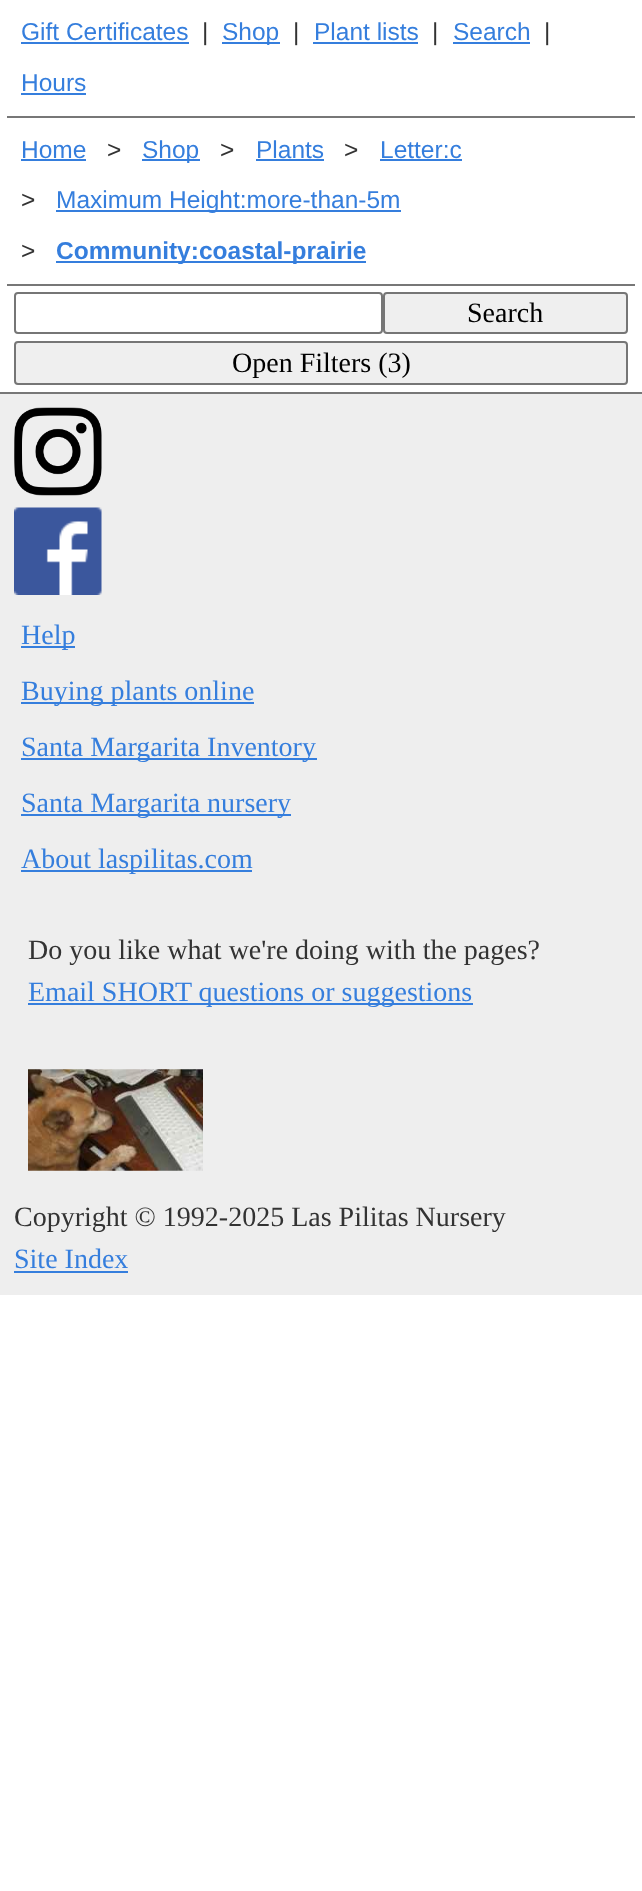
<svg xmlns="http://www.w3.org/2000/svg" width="642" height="1891">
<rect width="100%" height="100%" fill="#fff"/>
<rect x="7" y="116" width="628" height="2" fill="#777"/>
<text x="21" y="40" style="font-family:Liberation Sans;font-size:24.5px;fill:#357edd">Gift Certificates</text>
<rect x="21" y="42" width="168" height="2" fill="#357edd"/>
<text x="202" y="40" style="font-family:Liberation Sans;font-size:24.5px;fill:#333">|</text>
<rect x="222" y="42" width="58" height="2" fill="#357edd"/>
<text x="222" y="40" style="font-family:Liberation Sans;font-size:24.5px;fill:#357edd">Shop</text>
<text x="293" y="40" style="font-family:Liberation Sans;font-size:24.5px;fill:#333">|</text>
<text x="314" y="40" style="font-family:Liberation Sans;font-size:24.5px;fill:#357edd">Plant lists</text>
<rect x="313" y="42" width="105" height="2" fill="#357edd"/>
<text x="432" y="40" style="font-family:Liberation Sans;font-size:24.5px;fill:#333">|</text>
<text x="453" y="40" style="font-family:Liberation Sans;font-size:24.5px;fill:#357edd">Search</text>
<rect x="453" y="42" width="77" height="2" fill="#357edd"/>
<text x="544" y="40" style="font-family:Liberation Sans;font-size:24.5px;fill:#333">|</text>
<text x="21" y="91" style="font-family:Liberation Sans;font-size:24.5px;fill:#357edd">Hours</text>
<rect x="21" y="93" width="65" height="2" fill="#357edd"/>
<rect x="7" y="284" width="628" height="2" fill="#777"/>
<text x="21" y="158" style="font-family:Liberation Sans;font-size:24.5px;fill:#357edd">Home</text>
<rect x="21" y="159" width="65" height="2" fill="#357edd"/>
<text x="107" y="158" style="font-family:Liberation Sans;font-size:24.5px;fill:#333">&gt;</text>
<rect x="142" y="159" width="58" height="2" fill="#357edd"/>
<text x="142" y="158" style="font-family:Liberation Sans;font-size:24.5px;fill:#357edd">Shop</text>
<text x="220" y="158" style="font-family:Liberation Sans;font-size:24.5px;fill:#333">&gt;</text>
<text x="256" y="158" style="font-family:Liberation Sans;font-size:24.5px;fill:#357edd">Plants</text>
<rect x="256" y="159" width="68" height="2" fill="#357edd"/>
<text x="344" y="158" style="font-family:Liberation Sans;font-size:24.5px;fill:#333">&gt;</text>
<text x="380" y="158" style="font-family:Liberation Sans;font-size:24.5px;fill:#357edd">Letter:c</text>
<rect x="380" y="159" width="82" height="2" fill="#357edd"/>
<text x="21" y="208" style="font-family:Liberation Sans;font-size:24.5px;fill:#333">&gt;</text>
<rect x="56" y="210" width="345" height="2" fill="#357edd"/>
<text x="56" y="208" style="font-family:Liberation Sans;font-size:24.5px;fill:#357edd">Maximum Height:more-than-5m</text>
<text x="21" y="259" style="font-family:Liberation Sans;font-size:24.5px;fill:#333">&gt;</text>
<rect x="56" y="261" width="310" height="2" fill="#357edd"/>
<text x="56" y="259" style="font-family:Liberation Sans;font-size:24.5px;font-weight:bold;fill:#357edd">Community:coastal-prairie</text>
<rect x="15" y="293" width="367" height="40" rx="3" fill="none" stroke="#767676" stroke-width="2"/>
<rect x="384" y="293" width="243" height="40" rx="3" fill="#efefef" stroke="#767676" stroke-width="2"/>
<text x="467" y="322" style="font-family:Liberation Serif;font-size:28px;fill:#000">Search</text>
<rect x="15" y="342" width="612" height="42" rx="3" fill="#efefef" stroke="#767676" stroke-width="2"/>
<text x="232" y="372" style="font-family:Liberation Serif;font-size:28px;fill:#000">Open Filters (3)</text>
<rect y="394" width="642" height="901" fill="#eee"/>
<rect y="392" width="642" height="2" fill="#777"/>
<image x="14" y="407" width="88" height="89" href="media/1.png"/>
<image x="14" y="507" width="88" height="88" href="media/2.png"/>
<rect x="21" y="646" width="54" height="2" fill="#357edd"/>
<text x="21" y="644" style="font-family:Liberation Serif;font-size:28px;fill:#357edd">Help</text>
<rect x="21" y="702" width="233" height="2" fill="#357edd"/>
<text x="21" y="700" style="font-family:Liberation Serif;font-size:28px;fill:#357edd">Buying plants online</text>
<rect x="21" y="758" width="296" height="2" fill="#357edd"/>
<text x="21" y="756" style="font-family:Liberation Serif;font-size:28px;fill:#357edd">Santa Margarita Inventory</text>
<rect x="21" y="814" width="270" height="2" fill="#357edd"/>
<text x="21" y="812" style="font-family:Liberation Serif;font-size:28px;fill:#357edd">Santa Margarita nursery</text>
<rect x="21" y="870" width="231" height="2" fill="#357edd"/>
<text x="21" y="868" style="font-family:Liberation Serif;font-size:28px;fill:#357edd">About laspilitas.com</text>
<text x="28" y="959" style="font-family:Liberation Serif;font-size:28px;fill:#333">Do you like what we're doing with the pages?</text>
<rect x="28" y="1003" width="445" height="2" fill="#357edd"/>
<text x="28" y="1001" style="font-family:Liberation Serif;font-size:28px;fill:#357edd">Email SHORT questions or suggestions</text>
<image x="28" y="1069" width="175" height="102" href="media/3.png"/>
<text x="14" y="1226" style="font-family:Liberation Serif;font-size:28px;fill:#333">Copyright © 1992-2025 Las Pilitas Nursery</text>
<text x="14" y="1268" style="font-family:Liberation Serif;font-size:28px;fill:#357edd">Site Index</text>
<rect x="14" y="1271" width="114" height="2" fill="#357edd"/>
</svg>
